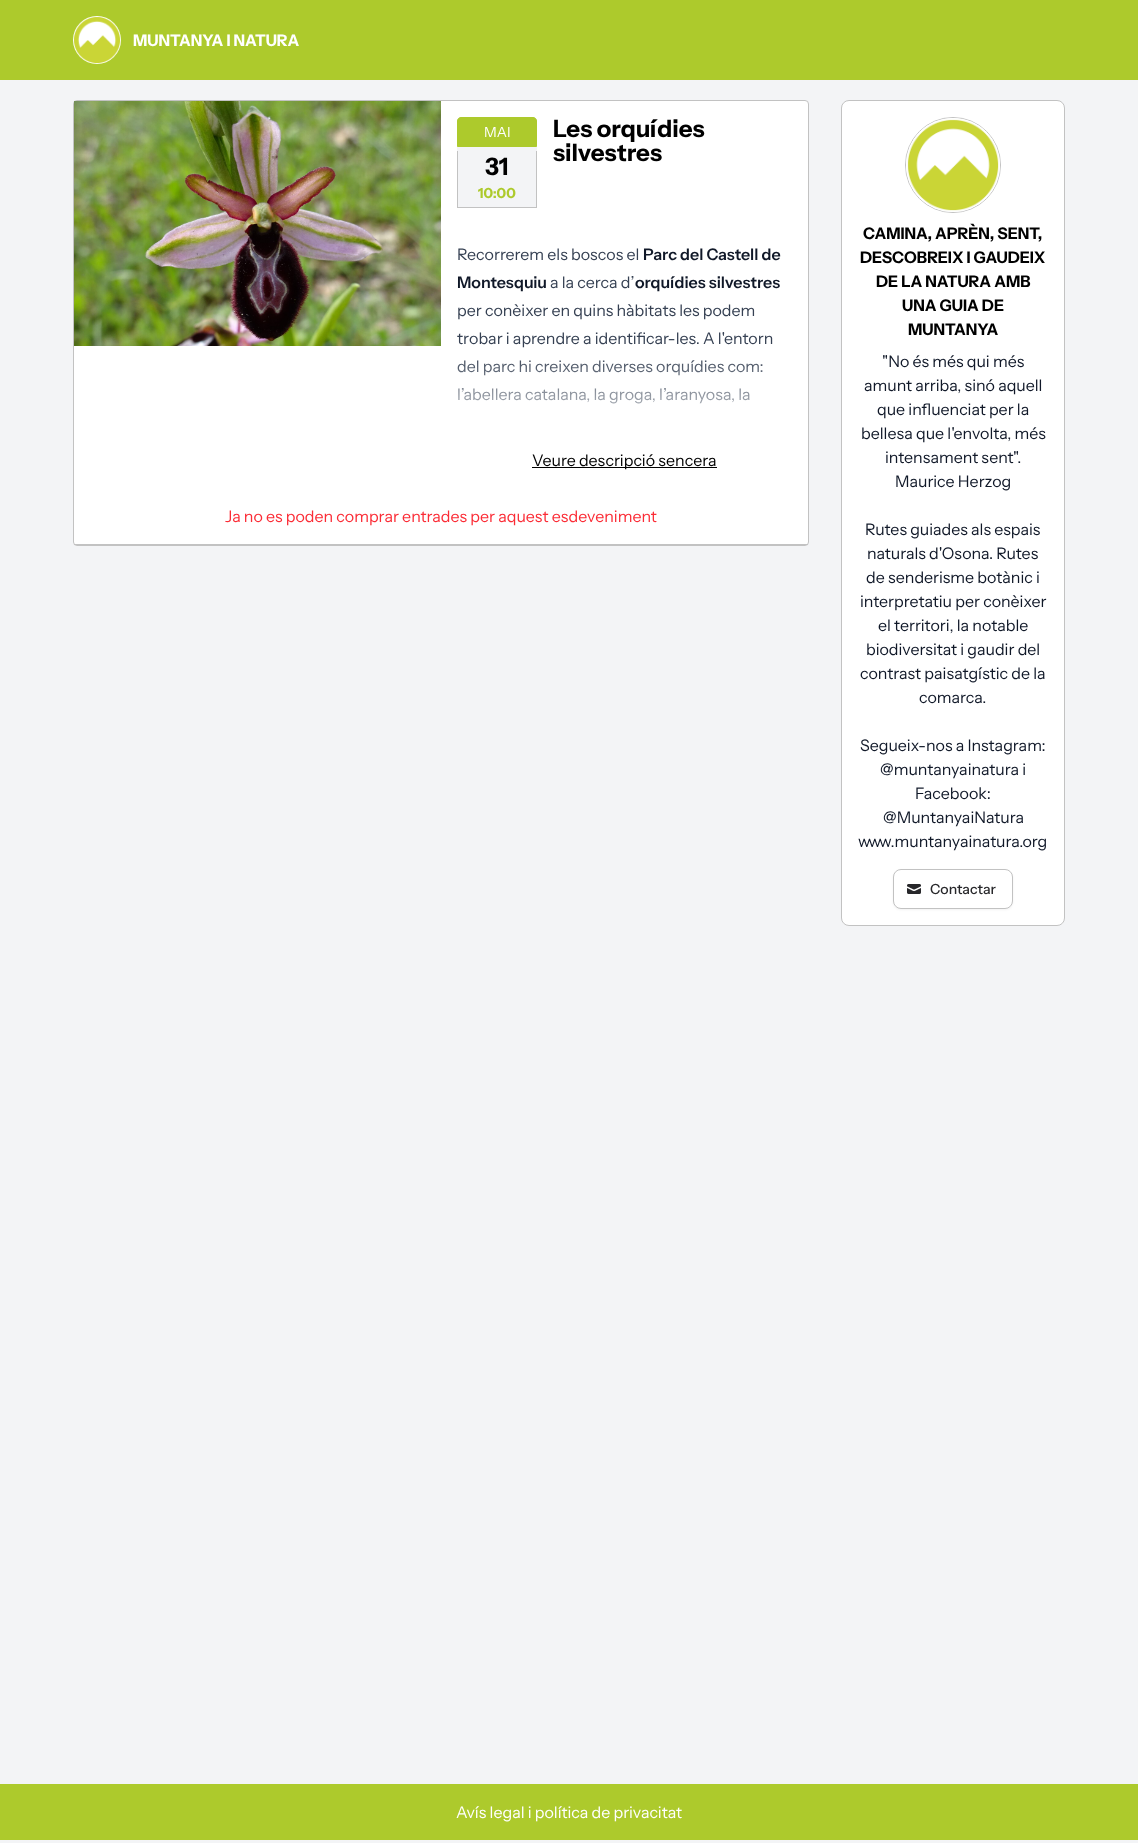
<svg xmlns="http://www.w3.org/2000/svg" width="1138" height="1843">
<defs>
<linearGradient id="g1" gradientUnits="userSpaceOnUse" x1="625" y1="448" x2="625" y2="352"><stop offset="0" stop-color="#fff"/><stop offset="1" stop-color="#fff" stop-opacity="0"/></linearGradient>
</defs>
<rect width="100%" height="100%" fill="#f3f4f6"/>
<rect width="1138" height="80" fill="#adca2c"/>
<image x="73" y="16" width="48" height="48" href="media/1.png"/>
<text x="133" y="46" style="font-family:Instrument Sans;font-size:16px;font-weight:bold;fill:#fff">MUNTANYA I NATURA</text>
<rect x="73.5" y="100.5" width="735" height="445" rx="3.5" fill="#fff" stroke="#c2c2c2"/>
<rect x="74" y="544" width="734" height="1" fill="#c2c2c2"/>
<image x="74" y="101" width="367" height="245" href="media/2.png"/>
<rect x="457" y="117" width="80" height="91" rx="4" fill="#f3f4f6"/>
<path d="M461 117.5h72c2 0 3.5 1.5 3.5 3.5v25.5h-79v-25.5c0-2 1.5-3.5 3.5-3.5z" fill="#adca2c" stroke="#adca2c"/>
<text x="484" y="137" style="font-family:Instrument Sans;font-size:14px;fill:#fff">MAI</text>
<rect x="536" y="151" width="1" height="57" fill="#c2c2c2"/>
<rect x="457" y="207" width="80" height="1" fill="#c2c2c2"/>
<rect x="457" y="151" width="1" height="57" fill="#c2c2c2"/>
<text x="485" y="175" style="font-family:Instrument Sans;font-size:24px;font-weight:bold;fill:#000">31</text>
<text x="478" y="198" style="font-family:Instrument Sans;font-size:14px;font-weight:bold;fill:#adca2c">10:00</text>
<text x="553" y="137" style="font-family:Instrument Sans;font-size:24px;font-weight:bold;fill:#000">Les orquídies</text>
<text x="553" y="161" style="font-family:Instrument Sans;font-size:24px;font-weight:bold;fill:#000">silvestres</text>
<text x="457" y="260" style="font-family:Instrument Sans;font-size:16px;fill:#364153">Recorrerem els boscos el</text>
<text x="643" y="260" style="font-family:Instrument Sans;font-size:16px;font-weight:600;fill:#101828">Parc del Castell de</text>
<text x="457" y="288" style="font-family:Instrument Sans;font-size:16px;font-weight:600;fill:#101828">Montesquiu</text>
<text x="550" y="288" style="font-family:Instrument Sans;font-size:16px;fill:#364153">a la cerca d’</text>
<text x="635" y="288" style="font-family:Instrument Sans;font-size:16px;font-weight:600;fill:#101828">orquídies silvestres</text>
<text x="457" y="316" style="font-family:Instrument Sans;font-size:16px;fill:#364153">per conèixer en quins hàbitats les podem</text>
<text x="457" y="344" style="font-family:Instrument Sans;font-size:16px;fill:#364153">trobar i aprendre a identificar-les. A l'entorn</text>
<text x="457" y="372" style="font-family:Instrument Sans;font-size:16px;fill:#364153">del parc hi creixen diverses orquídies com:</text>
<text x="457" y="400" style="font-family:Instrument Sans;font-size:16px;fill:#364153">l’abellera catalana, la groga, l’aranyosa, la</text>
<rect x="457" y="360" width="306" height="44" fill="url(#g1)"/>
<rect x="532" y="467" width="185" height="1" fill="#000"/>
<text x="532" y="466" style="font-family:Instrument Sans;font-size:16px;fill:#000">Veure descripció sencera</text>
<text x="225" y="522" style="font-family:Instrument Sans;font-size:16px;fill:#fb2c36">Ja no es poden comprar entrades per aquest esdeveniment</text>
<rect x="841.5" y="100.5" width="223" height="825" rx="7.5" fill="#fff" stroke="#c2c2c2"/>
<circle cx="953" cy="165" r="47.5" fill="none" stroke="#c2c2c2"/>
<image x="906" y="118" width="94" height="94" href="media/3.png"/>
<text x="863" y="239" style="font-family:Instrument Sans;font-size:16px;font-weight:bold;fill:#000">CAMINA, APRÈN, SENT,</text>
<text x="860" y="263" style="font-family:Instrument Sans;font-size:16px;font-weight:bold;fill:#000">DESCOBREIX I GAUDEIX</text>
<text x="876" y="287" style="font-family:Instrument Sans;font-size:16px;font-weight:bold;fill:#000">DE LA NATURA AMB</text>
<text x="902" y="311" style="font-family:Instrument Sans;font-size:16px;font-weight:bold;fill:#000">UNA GUIA DE</text>
<text x="908" y="335" style="font-family:Instrument Sans;font-size:16px;font-weight:bold;fill:#000">MUNTANYA</text>
<text x="882" y="367" style="font-family:Instrument Sans;font-size:16px;fill:#101828">"No és més qui més</text>
<text x="864" y="391" style="font-family:Instrument Sans;font-size:16px;fill:#101828">amunt arriba, sinó aquell</text>
<text x="877" y="415" style="font-family:Instrument Sans;font-size:16px;fill:#101828">que influenciat per la</text>
<text x="861" y="439" style="font-family:Instrument Sans;font-size:16px;fill:#101828">bellesa que l'envolta, més</text>
<text x="885" y="463" style="font-family:Instrument Sans;font-size:16px;fill:#101828">intensament sent".</text>
<text x="895" y="487" style="font-family:Instrument Sans;font-size:16px;fill:#101828">Maurice Herzog</text>
<text x="865" y="535" style="font-family:Instrument Sans;font-size:16px;fill:#101828">Rutes guiades als espais</text>
<text x="867" y="559" style="font-family:Instrument Sans;font-size:16px;fill:#101828">naturals d'Osona. Rutes</text>
<text x="866" y="583" style="font-family:Instrument Sans;font-size:16px;fill:#101828">de senderisme botànic i</text>
<text x="860" y="607" style="font-family:Instrument Sans;font-size:16px;fill:#101828">interpretatiu per conèixer</text>
<text x="878" y="631" style="font-family:Instrument Sans;font-size:16px;fill:#101828">el territori, la notable</text>
<text x="866" y="655" style="font-family:Instrument Sans;font-size:16px;fill:#101828">biodiversitat i gaudir del</text>
<text x="860" y="679" style="font-family:Instrument Sans;font-size:16px;fill:#101828">contrast paisatgístic de la</text>
<text x="919" y="703" style="font-family:Instrument Sans;font-size:16px;fill:#101828">comarca.</text>
<text x="860" y="751" style="font-family:Instrument Sans;font-size:16px;fill:#101828">Segueix-nos a Instagram:</text>
<text x="880" y="775" style="font-family:Instrument Sans;font-size:16px;fill:#101828">@muntanyainatura i</text>
<text x="915" y="799" style="font-family:Instrument Sans;font-size:16px;fill:#101828">Facebook:</text>
<text x="883" y="823" style="font-family:Instrument Sans;font-size:16px;fill:#101828">@MuntanyaiNatura</text>
<text x="858" y="847" style="font-family:Instrument Sans;font-size:16px;fill:#101828">www.muntanyainatura.org</text>
<rect x="893" y="870" width="120" height="40" rx="8" fill="#0000000d" filter="blur(1px)"/>
<rect x="893.5" y="869.5" width="119" height="39" rx="7.5" fill="#fff" stroke="#c2c2c2"/>
<image x="907" y="884" width="14" height="10" href="media/4.png"/>
<text x="930" y="894" style="font-family:Instrument Sans;font-size:14px;font-weight:500;fill:#27272a">Contactar</text>
<rect y="1784" width="1138" height="56" fill="#adca2c"/>
<text x="456" y="1818" style="font-family:Instrument Sans;font-size:16px;fill:#fff">Avís legal i política de privacitat</text>
</svg>
